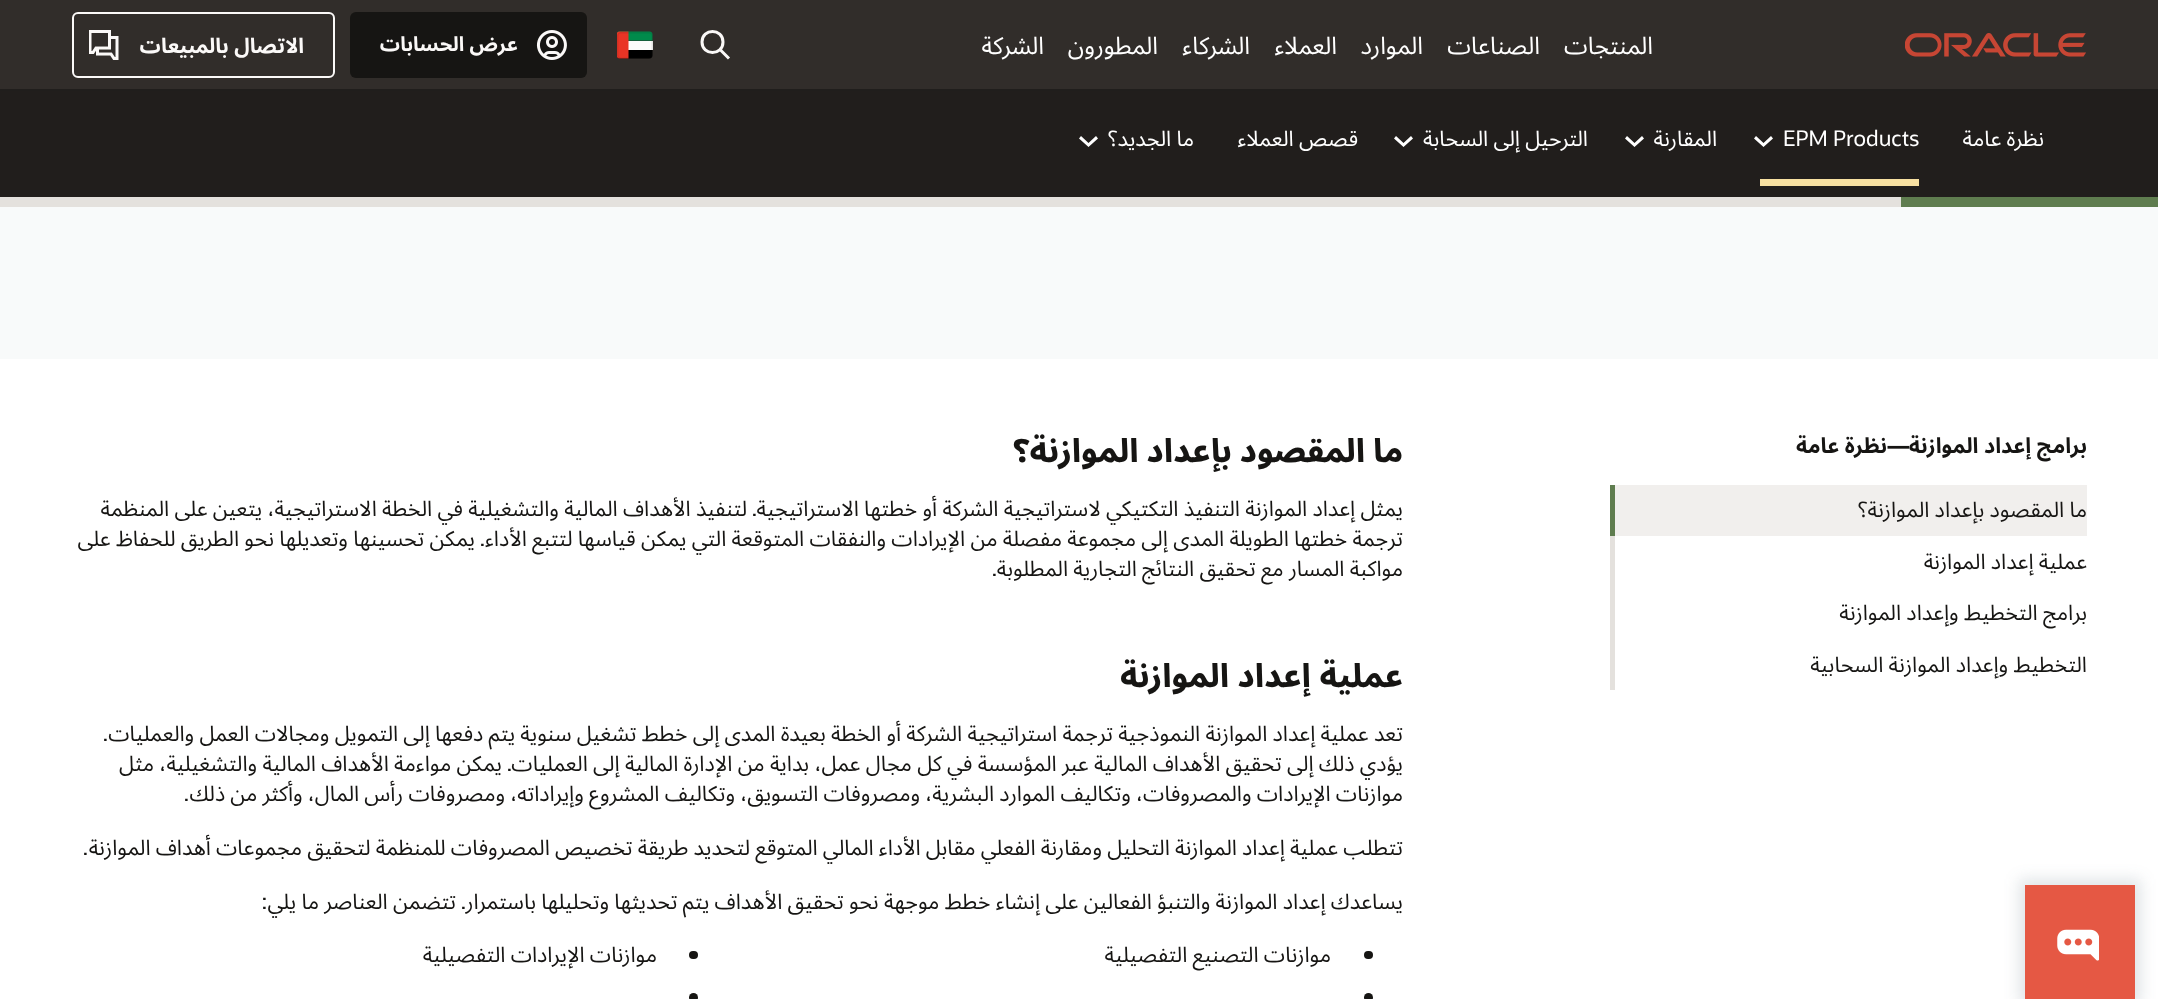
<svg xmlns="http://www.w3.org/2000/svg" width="2158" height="999">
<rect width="100%" height="100%" fill="#fff"/>
<rect width="2158" height="89" fill="#312d2a"/>
<image x="1905" y="33" width="181" height="24" href="media/1.png"/>
<text x="1653" y="54" style="font-family:Noto Sans Arabic;font-size:24px;direction:rtl;fill:#fff">المنتجات</text>
<text x="1540" y="54" style="font-family:Noto Sans Arabic;font-size:24px;direction:rtl;fill:#fff">الصناعات</text>
<text x="1423" y="54" style="font-family:Noto Sans Arabic;font-size:24px;direction:rtl;fill:#fff">الموارد</text>
<text x="1337" y="54" style="font-family:Noto Sans Arabic;font-size:24px;direction:rtl;fill:#fff">العملاء</text>
<text x="1250" y="54" style="font-family:Noto Sans Arabic;font-size:24px;direction:rtl;fill:#fff">الشركاء</text>
<text x="1158" y="54" style="font-family:Noto Sans Arabic;font-size:24px;direction:rtl;fill:#fff">المطورون</text>
<text x="1044" y="54" style="font-family:Noto Sans Arabic;font-size:24px;direction:rtl;fill:#fff">الشركة</text>
<path d="M720 49.5l9 9m-6-16.5c0 14-21 14-21 0c0-14 21-14 21 0z" fill="none" stroke="#fbf9f8" stroke-width="3"/>
<image x="617" y="31" width="36" height="28" href="media/2.png"/>
<rect x="350" y="12" width="237" height="66" rx="6" fill="#161513"/>
<image x="536" y="30" width="31" height="30" href="media/3.png"/>
<text x="518" y="51" style="font-family:Noto Sans Arabic;font-size:20px;font-weight:bold;direction:rtl;fill:#fbf9f8">عرض الحسابات</text>
<image x="89" y="30" width="30" height="30" href="media/4.png"/>
<rect x="73" y="13" width="261" height="64" rx="5" fill="none" stroke="#fbf9f8" stroke-width="2"/>
<text x="304" y="53" style="font-family:Noto Sans Arabic;font-size:21px;font-weight:bold;direction:rtl;fill:#fbf9f8">الاتصال بالمبيعات</text>
<rect y="89" width="2158" height="2" fill="#201e1c"/>
<rect y="91" width="2158" height="106" fill="#211e1c"/>
<text x="2044" y="146" word-spacing="-0.3" style="font-family:Noto Sans Arabic;font-size:21.5px;direction:rtl;fill:#fff">نظرة عامة</text>
<text x="1783" y="146" style="font-family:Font;font-size:21.5px;fill:#fff">EPM Products</text>
<path d="M1756 136l-2 2.5l9.5 8.5l9.5-8.5l-2-2.5l-7.5 7z" fill="#fff"/>
<rect x="1760" y="179" width="159" height="7" fill="#f7e0a1"/>
<text x="1717" y="146" style="font-family:Noto Sans Arabic;font-size:21.5px;direction:rtl;fill:#fff">المقارنة</text>
<path d="M1627 136l-2 2.5l9.5 8.5l9.5-8.5l-2-2.5l-7.5 7z" fill="#fff"/>
<text x="1588" y="146" word-spacing="-0.3" style="font-family:Noto Sans Arabic;font-size:21.5px;direction:rtl;fill:#fff">الترحيل إلى السحابة</text>
<path d="M1396 136l-2 2.5l9.5 8.5l9.5-8.5l-2-2.5l-7.5 7z" fill="#fff"/>
<text x="1358" y="146" word-spacing="-0.3" style="font-family:Noto Sans Arabic;font-size:21.5px;direction:rtl;fill:#fff">قصص العملاء</text>
<text x="1194" y="146" word-spacing="-0.3" style="font-family:Noto Sans Arabic;font-size:21.5px;direction:rtl;fill:#fff">ما الجديد؟</text>
<path d="M1081 136l-2 2.5l9.5 8.5l9.5-8.5l-2-2.5l-7.5 7z" fill="#fff"/>
<rect y="197" width="1901" height="10" fill="#e4e1dd"/>
<rect x="1901" y="197" width="257" height="10" fill="#5f7d4f"/>
<rect y="207" width="2158" height="152" fill="#f8fafa"/>
<text x="2087" y="453" style="font-family:Noto Sans Arabic;font-size:21.5px;font-weight:bold;direction:rtl;fill:#161513">برامج إعداد الموازنة</text>
<text x="1909" y="453" style="font-family:Font;font-size:21.5px;font-weight:bold;direction:rtl;fill:#161513">—</text>
<text x="1887" y="453" style="font-family:Noto Sans Arabic;font-size:21.5px;font-weight:bold;direction:rtl;fill:#161513">نظرة عامة</text>
<rect x="1615" y="485" width="472" height="51" fill="#f1efed"/>
<text x="2087" y="517" word-spacing="-0.3" style="font-family:Noto Sans Arabic;font-size:21.5px;direction:rtl;fill:#161513">ما المقصود بإعداد الموازنة؟</text>
<rect x="1610" y="485" width="5" height="51" fill="#5f7d4f"/>
<text x="2087" y="569" word-spacing="-0.3" style="font-family:Noto Sans Arabic;font-size:21.5px;direction:rtl;fill:#161513">عملية إعداد الموازنة</text>
<rect x="1610" y="536" width="5" height="154" fill="#e4e1dd"/>
<text x="2087" y="620" word-spacing="-0.3" style="font-family:Noto Sans Arabic;font-size:21.5px;direction:rtl;fill:#161513">برامج التخطيط وإعداد الموازنة</text>
<text x="2087" y="672" word-spacing="-0.3" style="font-family:Noto Sans Arabic;font-size:21.5px;direction:rtl;fill:#161513">التخطيط وإعداد الموازنة السحابية</text>
<text x="1403" y="462" word-spacing="-0.5" style="font-family:Noto Sans Arabic;font-size:32.25px;font-weight:800;direction:rtl;fill:#161513">ما المقصود بإعداد الموازنة؟</text>
<text x="1403" y="516" word-spacing="-0.3" style="font-family:Noto Sans Arabic;font-size:21.5px;direction:rtl;fill:#161513">يمثل إعداد الموازنة التنفيذ التكتيكي لاستراتيجية الشركة أو خطتها الاستراتيجية</text>
<text x="757" y="516" style="font-family:Font;font-size:21.5px;direction:rtl;fill:#161513">.</text>
<text x="747" y="516" word-spacing="-0.3" style="font-family:Noto Sans Arabic;font-size:21.5px;direction:rtl;fill:#161513">لتنفيذ الأهداف المالية والتشغيلية في الخطة الاستراتيجية، يتعين على المنظمة</text>
<text x="1403" y="546" word-spacing="-0.3" style="font-family:Noto Sans Arabic;font-size:21.5px;direction:rtl;fill:#161513">ترجمة خطتها الطويلة المدى إلى مجموعة مفصلة من الإيرادات والنفقات المتوقعة التي يمكن قياسها لتتبع الأداء</text>
<text x="485" y="546" style="font-family:Font;font-size:21.5px;direction:rtl;fill:#161513">.</text>
<text x="475" y="546" word-spacing="-0.3" style="font-family:Noto Sans Arabic;font-size:21.5px;direction:rtl;fill:#161513">يمكن تحسينها وتعديلها نحو الطريق للحفاظ على</text>
<text x="1403" y="576" word-spacing="-0.3" style="font-family:Noto Sans Arabic;font-size:21.5px;direction:rtl;fill:#161513">مواكبة المسار مع تحقيق النتائج التجارية المطلوبة</text>
<text x="997" y="576" style="font-family:Font;font-size:21.5px;direction:rtl;fill:#161513">.</text>
<text x="1403" y="687" style="font-family:Noto Sans Arabic;font-size:32.25px;font-weight:800;direction:rtl;fill:#161513">عملية إعداد الموازنة</text>
<text x="1403" y="741" word-spacing="-0.35" style="font-family:Noto Sans Arabic;font-size:21.5px;direction:rtl;fill:#161513">تعد عملية إعداد الموازنة النموذجية ترجمة استراتيجية الشركة أو الخطة بعيدة المدى إلى خطط تشغيل سنوية يتم دفعها إلى التمويل ومجالات العمل والعمليات</text>
<text x="108" y="741" style="font-family:Font;font-size:21.5px;direction:rtl;fill:#161513">.</text>
<text x="1403" y="771" word-spacing="-0.3" style="font-family:Noto Sans Arabic;font-size:21.5px;direction:rtl;fill:#161513">يؤدي ذلك إلى تحقيق الأهداف المالية عبر المؤسسة في كل مجال عمل، بداية من الإدارة المالية إلى العمليات</text>
<text x="512" y="771" style="font-family:Font;font-size:21.5px;direction:rtl;fill:#161513">.</text>
<text x="502" y="771" word-spacing="-0.3" style="font-family:Noto Sans Arabic;font-size:21.5px;direction:rtl;fill:#161513">يمكن مواءمة الأهداف المالية والتشغيلية، مثل</text>
<text x="1403" y="801" word-spacing="-0.4" style="font-family:Noto Sans Arabic;font-size:21.5px;direction:rtl;fill:#161513">موازنات الإيرادات والمصروفات، وتكاليف الموارد البشرية، ومصروفات التسويق، وتكاليف المشروع وإيراداته، ومصروفات رأس المال، وأكثر من ذلك</text>
<text x="189" y="801" style="font-family:Font;font-size:21.5px;direction:rtl;fill:#161513">.</text>
<text x="1403" y="855" word-spacing="-0.4" style="font-family:Noto Sans Arabic;font-size:21.5px;direction:rtl;fill:#161513">تتطلب عملية إعداد الموازنة التحليل ومقارنة الفعلي مقابل الأداء المالي المتوقع لتحديد طريقة تخصيص المصروفات للمنظمة لتحقيق مجموعات أهداف الموازنة</text>
<text x="88" y="855" style="font-family:Font;font-size:21.5px;direction:rtl;fill:#161513">.</text>
<text x="1403" y="909" word-spacing="-0.3" style="font-family:Noto Sans Arabic;font-size:21.5px;direction:rtl;fill:#161513">يساعدك إعداد الموازنة والتنبؤ الفعالين على إنشاء خطط موجهة نحو تحقيق الأهداف يتم تحديثها وتحليلها باستمرار</text>
<text x="466" y="909" style="font-family:Font;font-size:21.5px;direction:rtl;fill:#161513">.</text>
<text x="456" y="909" word-spacing="-0.3" style="font-family:Noto Sans Arabic;font-size:21.5px;direction:rtl;fill:#161513">تتضمن العناصر ما يلي</text>
<text x="267" y="909" style="font-family:Font;font-size:21.5px;direction:rtl;fill:#161513">:</text>
<rect x="1364" y="951" width="9" height="8" rx="4" fill="#161513"/>
<text x="1331" y="962" word-spacing="-0.3" style="font-family:Noto Sans Arabic;font-size:21.5px;direction:rtl;fill:#161513">موازنات التصنيع التفصيلية</text>
<rect x="689" y="951" width="9" height="8" rx="4" fill="#161513"/>
<text x="657" y="962" word-spacing="-0.3" style="font-family:Noto Sans Arabic;font-size:21.5px;direction:rtl;fill:#161513">موازنات الإيرادات التفصيلية</text>
<circle cx="1368.5" cy="997.5" r="4.5" fill="#161513"/>
<circle cx="693.5" cy="997.5" r="4.5" fill="#161513"/>
<rect x="2019" y="879" width="122" height="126" fill="#324b5c26" filter="blur(7.5px)"/>
<rect x="2025" y="885" width="110" height="114" fill="#e55844"/>
<image x="2057" y="929" width="42" height="32" href="media/5.png"/>
</svg>
